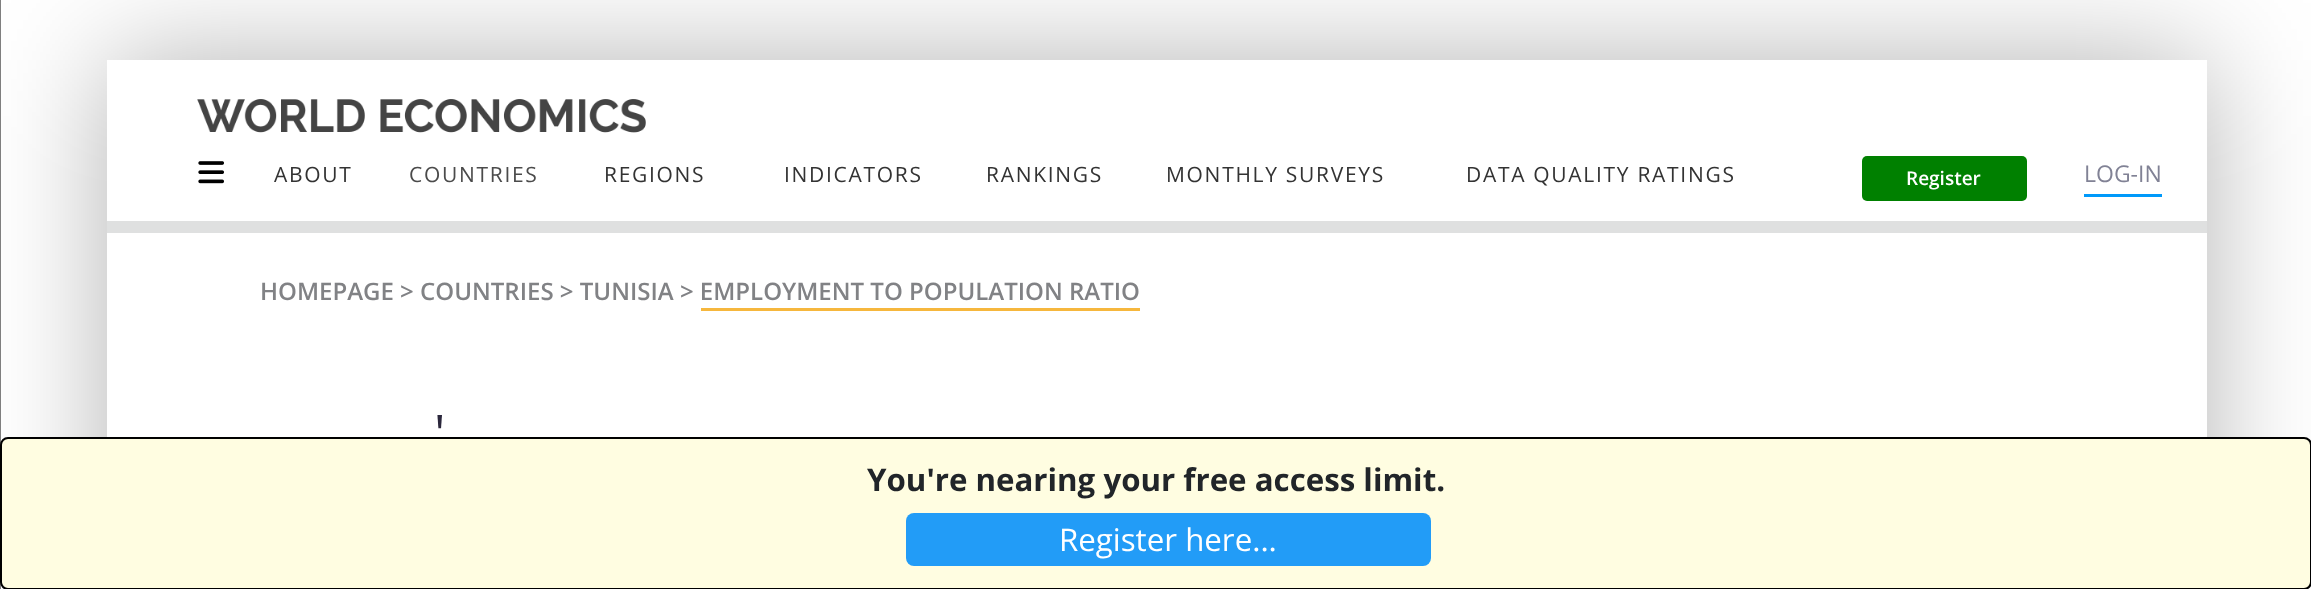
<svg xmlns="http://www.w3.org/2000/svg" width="2311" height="589">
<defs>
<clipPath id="clip1"><path d="M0 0h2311v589h-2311zm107 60h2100v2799h-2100z" clip-rule="evenodd"/></clipPath>
</defs>
<rect width="100%" height="100%" fill="#fff"/>
<g clip-path="url(#clip1)">
<rect x="107" y="60" width="2100" height="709" fill="#0000004d" filter="blur(60px)"/>
</g>
<rect x="2206" y="60" width="1" height="161" fill="#fff"/>
<rect x="107" y="221" width="2100" height="12" fill="#dfe0e0"/>
<image x="197" y="99" width="449" height="34" href="media/1.png"/>
<rect width="1" height="589" fill="#7f7f7f"/>
<image x="198" y="161" width="26" height="23" href="media/2.png"/>
<text x="274" y="182" style="font-family:Open Sans;font-size:21px;letter-spacing:1.7px;fill:#333">ABOUT</text>
<text x="409" y="182" style="font-family:Open Sans;font-size:21px;letter-spacing:1.7px;fill:#4b4b4b">COUNTRIES</text>
<text x="604" y="182" style="font-family:Open Sans;font-size:21px;letter-spacing:1.7px;fill:#333">REGIONS</text>
<text x="784" y="182" style="font-family:Open Sans;font-size:21px;letter-spacing:1.7px;fill:#333">INDICATORS</text>
<text x="986" y="182" style="font-family:Open Sans;font-size:21px;letter-spacing:1.7px;fill:#333">RANKINGS</text>
<text x="1166" y="182" style="font-family:Open Sans;font-size:21px;letter-spacing:1.7px;fill:#333">MONTHLY SURVEYS</text>
<text x="1466" y="182" style="font-family:Open Sans;font-size:21px;letter-spacing:1.7px;fill:#333">DATA QUALITY RATINGS</text>
<rect x="1862" y="156" width="165" height="45" rx="5" fill="#008000"/>
<text x="1906" y="185" style="font-family:Open Sans;font-size:19px;font-weight:600;fill:#fff">Register</text>
<text x="2084" y="182" style="font-family:Open Sans;font-size:23px;fill:#818295">LOG-IN</text>
<rect x="2084" y="194" width="78" height="3" fill="#0099fa"/>
<text x="260" y="300" style="font-family:Open Sans;font-size:24px;font-weight:600;fill:#818285">HOMEPAGE &gt; COUNTRIES &gt; TUNISIA &gt; EMPLOYMENT TO POPULATION RATIO</text>
<rect x="701" y="308" width="439" height="3" fill="#f6b73d"/>
<text x="434" y="452" style="font-family:Open Sans;font-size:52px;fill:#2b273c">'</text>
<rect x="1" y="438" width="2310" height="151" rx="7" fill="#fffde1" stroke="#000" stroke-width="2"/>
<text x="867" y="491" style="font-family:Open Sans;font-size:31.25px;font-weight:bold;fill:#212529">You're nearing your free access limit.</text>
<rect x="906" y="513" width="525" height="53" rx="8" fill="#229cf7"/>
<text x="1059" y="551" style="font-family:Open Sans;font-size:31.25px;fill:#fff">Register here...</text>
</svg>
